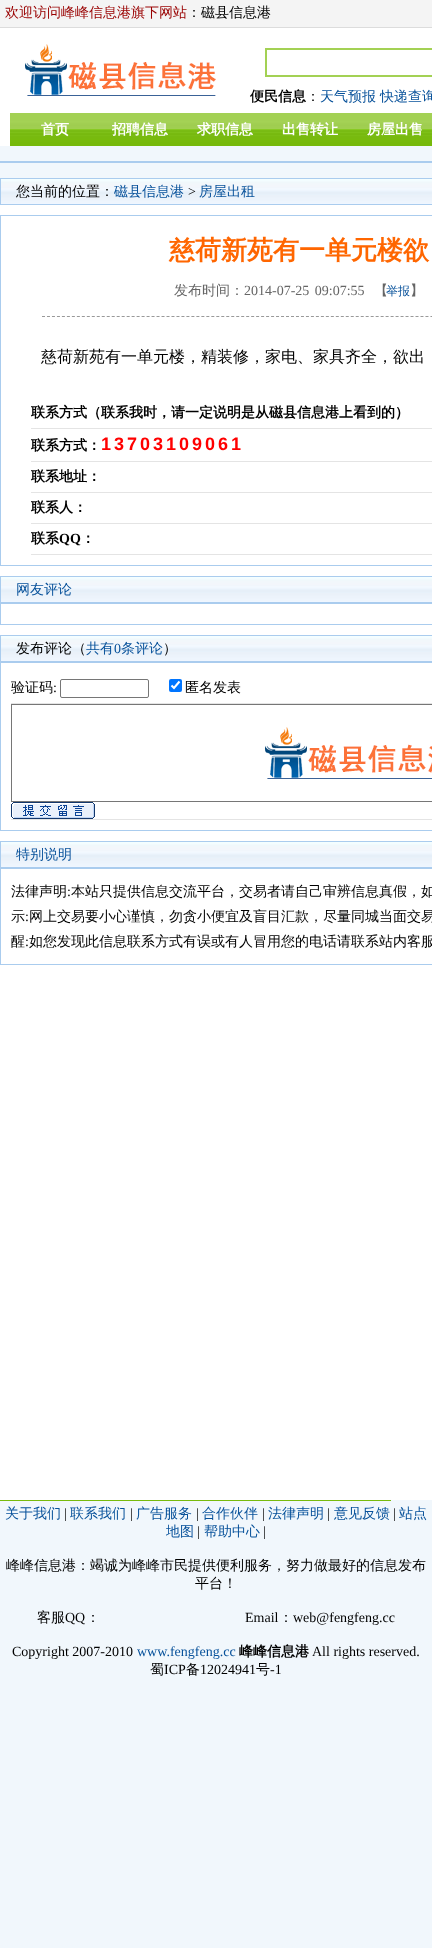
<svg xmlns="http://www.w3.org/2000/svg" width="432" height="1948">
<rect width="100%" height="100%" fill="#f1f7fc"/>
<rect y="28" width="432" height="118" fill="#fff"/>
<rect width="432" height="27" fill="#f4f4f4"/>
<rect y="27" width="432" height="1" fill="#dcdcdc"/>
<text x="5" y="17" style="font-family:WenQuanYi Zen Hei;font-size:14px;font-weight:500;fill:#900">欢迎访问峰峰信息港旗下网站</text>
<text x="187" y="17" style="font-family:WenQuanYi Zen Hei;font-size:14px;font-weight:500;fill:#000">：磁县信息港</text>
<image x="25" y="44" width="191" height="52" href="media/1.png"/>
<rect x="266" y="49" width="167" height="27" fill="none" stroke="#a3d154" stroke-width="2"/>
<text x="250" y="101" style="font-family:WenQuanYi Zen Hei;font-size:14px;font-weight:bold;fill:#000">便民信息</text>
<text x="306" y="101" style="font-family:WenQuanYi Zen Hei;font-size:14px;font-weight:500;fill:#000">：</text>
<text x="320" y="101" style="font-family:WenQuanYi Zen Hei;font-size:14px;font-weight:500;fill:#07519a">天气预报</text>
<text x="380" y="101" style="font-family:WenQuanYi Zen Hei;font-size:14px;font-weight:500;fill:#07519a">快递查询</text>
<image x="10" y="113" width="422" height="33" href="media/2.png"/>
<text x="41" y="134" style="font-family:WenQuanYi Zen Hei;font-size:14px;font-weight:bold;fill:#fff">首页</text>
<text x="112" y="134" style="font-family:WenQuanYi Zen Hei;font-size:14px;font-weight:bold;fill:#fff">招聘信息</text>
<text x="197" y="134" style="font-family:WenQuanYi Zen Hei;font-size:14px;font-weight:bold;fill:#fff">求职信息</text>
<text x="282" y="134" style="font-family:WenQuanYi Zen Hei;font-size:14px;font-weight:bold;fill:#fff">出售转让</text>
<text x="367" y="134" style="font-family:WenQuanYi Zen Hei;font-size:14px;font-weight:bold;fill:#fff">房屋出售</text>
<rect y="161" width="432" height="2" fill="#ace"/>
<rect y="205" width="432" height="1295" fill="#fff"/>
<image x="1" y="179" width="431" height="25" href="media/3.png"/>
<rect x="0.5" y="178.5" width="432" height="26" fill="none" stroke="#ace"/>
<text x="16" y="196" style="font-family:WenQuanYi Zen Hei;font-size:14px;font-weight:500;fill:#000">您当前的位置：</text>
<text x="114" y="196" style="font-family:WenQuanYi Zen Hei;font-size:14px;font-weight:500;fill:#07519a">磁县信息港</text>
<text x="188" y="196" style="font-family:Liberation Serif;font-size:14px;fill:#000">&gt;</text>
<text x="199" y="196" style="font-family:WenQuanYi Zen Hei;font-size:14px;font-weight:500;fill:#07519a">房屋出租</text>
<rect x="0.5" y="215.5" width="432" height="350" fill="none" stroke="#ace"/>
<text x="169" y="259" style="font-family:WenQuanYi Zen Hei;font-size:26px;font-weight:bold;fill:#f60">慈荷新苑有一单元楼欲</text>
<path d="M42 316.5h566" fill="none" stroke="#999" stroke-dasharray="3 1.98"/>
<text x="174" y="295" style="font-family:WenQuanYi Zen Hei;font-size:14px;font-weight:500;fill:#666">发布时间：</text>
<text x="244" y="295" word-spacing="2" style="font-family:Liberation Serif;font-size:14px;fill:#666">2014-07-25 09:07:55</text>
<text x="374" y="295" style="font-family:WenQuanYi Zen Hei;font-size:14px;font-weight:500;fill:#666">【</text>
<text x="386" y="295" style="font-family:WenQuanYi Zen Hei;font-size:12px;font-weight:500;fill:#07519a">举报</text>
<text x="410" y="295" style="font-family:WenQuanYi Zen Hei;font-size:14px;font-weight:500;fill:#666">】</text>
<text x="41" y="362" style="font-family:WenQuanYi Zen Hei;font-size:16px;font-weight:500;fill:#000">慈荷新苑有一单元楼，精装修，家电、家具齐全，欲出</text>
<rect x="31" y="428" width="401" height="1" fill="#e4e4e4"/>
<text x="31" y="417" style="font-family:WenQuanYi Zen Hei;font-size:14px;font-weight:bold;fill:#000">联系方式（联系我时，请一定说明是从磁县信息港上看到的）</text>
<rect x="31" y="461" width="401" height="1" fill="#e4e4e4"/>
<text x="31" y="450" style="font-family:WenQuanYi Zen Hei;font-size:14px;font-weight:bold;fill:#000">联系方式：</text>
<text x="101" y="450" style="font-family:Liberation Sans;font-size:18px;font-weight:bold;letter-spacing:3px;fill:#f00">13703109061</text>
<rect x="31" y="492" width="401" height="1" fill="#e4e4e4"/>
<text x="31" y="481" style="font-family:WenQuanYi Zen Hei;font-size:14px;font-weight:bold;fill:#000">联系地址：</text>
<rect x="31" y="523" width="401" height="1" fill="#e4e4e4"/>
<text x="31" y="512" style="font-family:WenQuanYi Zen Hei;font-size:14px;font-weight:bold;fill:#000">联系人：</text>
<rect x="31" y="554" width="401" height="1" fill="#e4e4e4"/>
<text x="31" y="543" style="font-family:WenQuanYi Zen Hei;font-size:14px;font-weight:bold;fill:#000">联系</text>
<text x="59" y="543" style="font-family:Liberation Serif;font-size:14px;font-weight:bold;fill:#000">QQ</text>
<text x="81" y="543" style="font-family:WenQuanYi Zen Hei;font-size:14px;font-weight:bold;fill:#000">：</text>
<image x="1" y="577" width="431" height="25" href="media/3.png"/>
<rect x="0.5" y="576.5" width="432" height="26" fill="none" stroke="#ace"/>
<text x="16" y="594" style="font-family:WenQuanYi Zen Hei;font-size:14px;font-weight:500;fill:#07519a">网友评论</text>
<rect x="0.5" y="603.5" width="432" height="21" fill="none" stroke="#ace"/>
<image x="1" y="636" width="431" height="25" href="media/3.png"/>
<rect x="0.5" y="635.5" width="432" height="26" fill="none" stroke="#ace"/>
<text x="16" y="653" style="font-family:WenQuanYi Zen Hei;font-size:14px;font-weight:500;fill:#000">发布评论（</text>
<text x="86" y="653" style="font-family:WenQuanYi Zen Hei;font-size:14px;font-weight:500;fill:#07519a">共有</text>
<text x="114" y="653" style="font-family:Liberation Serif;font-size:14px;fill:#07519a">0</text>
<text x="121" y="653" style="font-family:WenQuanYi Zen Hei;font-size:14px;font-weight:500;fill:#07519a">条评论</text>
<text x="163" y="653" style="font-family:WenQuanYi Zen Hei;font-size:14px;font-weight:500;fill:#000">）</text>
<rect x="0.5" y="662.5" width="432" height="168" fill="none" stroke="#ace"/>
<rect x="11" y="703" width="421" height="1" fill="#e4e4e4"/>
<text x="11" y="692" style="font-family:WenQuanYi Zen Hei;font-size:14px;font-weight:500;fill:#000">验证码</text>
<text x="53" y="692" style="font-family:Liberation Serif;font-size:14px;fill:#000">:</text>
<rect x="60.5" y="679.5" width="88" height="18" rx="1.5" fill="none" stroke="#767676"/>
<rect x="169" y="679" width="13" height="13" rx="2" fill="#0075ff"/>
<path d="M171.5 685.5l2.5 2.5l5.5-6.5" fill="none" stroke="#fff" stroke-width="2.1"/>
<text x="185" y="692" style="font-family:WenQuanYi Zen Hei;font-size:14px;font-weight:500;fill:#000">匿名发表</text>
<rect x="11" y="819" width="421" height="1" fill="#e4e4e4"/>
<image x="265" y="727" width="167" height="52" href="media/4.png"/>
<rect x="11.5" y="704.5" width="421" height="97" fill="none" stroke="#767676"/>
<image x="11" y="802" width="84" height="17" href="media/5.png"/>
<image x="1" y="842" width="431" height="25" href="media/3.png"/>
<rect x="0.5" y="841.5" width="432" height="26" fill="none" stroke="#ace"/>
<text x="16" y="859" style="font-family:WenQuanYi Zen Hei;font-size:14px;font-weight:500;fill:#07519a">特别说明</text>
<rect x="0.5" y="868.5" width="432" height="96" fill="none" stroke="#ace"/>
<text x="11" y="896" style="font-family:WenQuanYi Zen Hei;font-size:14px;font-weight:500;fill:#000">法律声明</text>
<text x="67" y="896" style="font-family:Liberation Serif;font-size:14px;fill:#000">:</text>
<text x="71" y="896" word-spacing="-1" style="font-family:WenQuanYi Zen Hei;font-size:14px;font-weight:500;fill:#000">本站只提供信息交流平台，交易者请自己审辨信息真假，如</text>
<text x="11" y="921" style="font-family:WenQuanYi Zen Hei;font-size:14px;font-weight:500;fill:#000">示</text>
<text x="25" y="921" style="font-family:Liberation Serif;font-size:14px;fill:#000">:</text>
<text x="29" y="921" word-spacing="-1" style="font-family:WenQuanYi Zen Hei;font-size:14px;font-weight:500;fill:#000">网上交易要小心谨慎，勿贪小便宜及盲目汇款，尽量同城当面交易</text>
<text x="11" y="946" style="font-family:WenQuanYi Zen Hei;font-size:14px;font-weight:500;fill:#000">醒</text>
<text x="25" y="946" style="font-family:Liberation Serif;font-size:14px;fill:#000">:</text>
<text x="29" y="946" style="font-family:WenQuanYi Zen Hei;font-size:14px;font-weight:500;fill:#000">如您发现此信息联系方式有误或有人冒用您的电话请联系站内客服</text>
<rect y="1500" width="391" height="1" fill="#78bb0c"/>
<text x="5" y="1518" style="font-family:WenQuanYi Zen Hei;font-size:14px;font-weight:500;fill:#07519a">关于我们</text>
<text x="64" y="1518" style="font-family:Liberation Serif;font-size:14px;fill:#000">|</text>
<text x="70" y="1518" style="font-family:WenQuanYi Zen Hei;font-size:14px;font-weight:500;fill:#07519a">联系我们</text>
<text x="130" y="1518" style="font-family:Liberation Serif;font-size:14px;fill:#000">|</text>
<text x="136" y="1518" style="font-family:WenQuanYi Zen Hei;font-size:14px;font-weight:500;fill:#07519a">广告服务</text>
<text x="196" y="1518" style="font-family:Liberation Serif;font-size:14px;fill:#000">|</text>
<text x="202" y="1518" style="font-family:WenQuanYi Zen Hei;font-size:14px;font-weight:500;fill:#07519a">合作伙伴</text>
<text x="262" y="1518" style="font-family:Liberation Serif;font-size:14px;fill:#000">|</text>
<text x="268" y="1518" style="font-family:WenQuanYi Zen Hei;font-size:14px;font-weight:500;fill:#07519a">法律声明</text>
<text x="327" y="1518" style="font-family:Liberation Serif;font-size:14px;fill:#000">|</text>
<text x="334" y="1518" style="font-family:WenQuanYi Zen Hei;font-size:14px;font-weight:500;fill:#07519a">意见反馈</text>
<text x="393" y="1518" style="font-family:Liberation Serif;font-size:14px;fill:#000">|</text>
<text x="399" y="1518" style="font-family:WenQuanYi Zen Hei;font-size:14px;font-weight:500;fill:#07519a">站点</text>
<text x="166" y="1536" style="font-family:WenQuanYi Zen Hei;font-size:14px;font-weight:500;fill:#07519a">地图</text>
<text x="197" y="1536" style="font-family:Liberation Serif;font-size:14px;fill:#000">|</text>
<text x="204" y="1536" style="font-family:WenQuanYi Zen Hei;font-size:14px;font-weight:500;fill:#07519a">帮助中心</text>
<text x="263" y="1536" style="font-family:Liberation Serif;font-size:14px;fill:#000">|</text>
<text x="6" y="1570" style="font-family:WenQuanYi Zen Hei;font-size:14px;font-weight:500;fill:#000">峰峰信息港：竭诚为峰峰市民提供便利服务，努力做最好的信息发布</text>
<text x="195" y="1588" style="font-family:WenQuanYi Zen Hei;font-size:14px;font-weight:500;fill:#000">平台！</text>
<text x="37" y="1622" style="font-family:WenQuanYi Zen Hei;font-size:14px;font-weight:500;fill:#000">客服</text>
<text x="65" y="1622" style="font-family:Liberation Serif;font-size:14px;fill:#000">QQ</text>
<text x="86" y="1622" style="font-family:WenQuanYi Zen Hei;font-size:14px;font-weight:500;fill:#000">：</text>
<text x="245" y="1622" style="font-family:Liberation Serif;font-size:14px;fill:#000">Email</text>
<text x="279" y="1622" style="font-family:WenQuanYi Zen Hei;font-size:14px;font-weight:500;fill:#000">：</text>
<text x="293" y="1622" style="font-family:Liberation Serif;font-size:14px;fill:#000">web@fengfeng.cc</text>
<text x="12" y="1656" style="font-family:Liberation Serif;font-size:14px;fill:#000">Copyright 2007-2010</text>
<text x="137" y="1656" style="font-family:Liberation Serif;font-size:14px;fill:#07519a">www.fengfeng.cc</text>
<text x="239" y="1656" style="font-family:WenQuanYi Zen Hei;font-size:14px;font-weight:bold;fill:#000">峰峰信息港</text>
<text x="312" y="1656" style="font-family:Liberation Serif;font-size:14px;fill:#000">All rights reserved.</text>
<text x="150" y="1674" style="font-family:WenQuanYi Zen Hei;font-size:14px;font-weight:500;fill:#000">蜀</text>
<text x="164" y="1674" style="font-family:Liberation Serif;font-size:14px;fill:#000">ICP</text>
<text x="186" y="1674" style="font-family:WenQuanYi Zen Hei;font-size:14px;font-weight:500;fill:#000">备</text>
<text x="200" y="1674" style="font-family:Liberation Serif;font-size:14px;fill:#000">12024941</text>
<text x="256" y="1674" style="font-family:WenQuanYi Zen Hei;font-size:14px;font-weight:500;fill:#000">号</text>
<text x="270" y="1674" style="font-family:Liberation Serif;font-size:14px;fill:#000">-1</text>
</svg>
